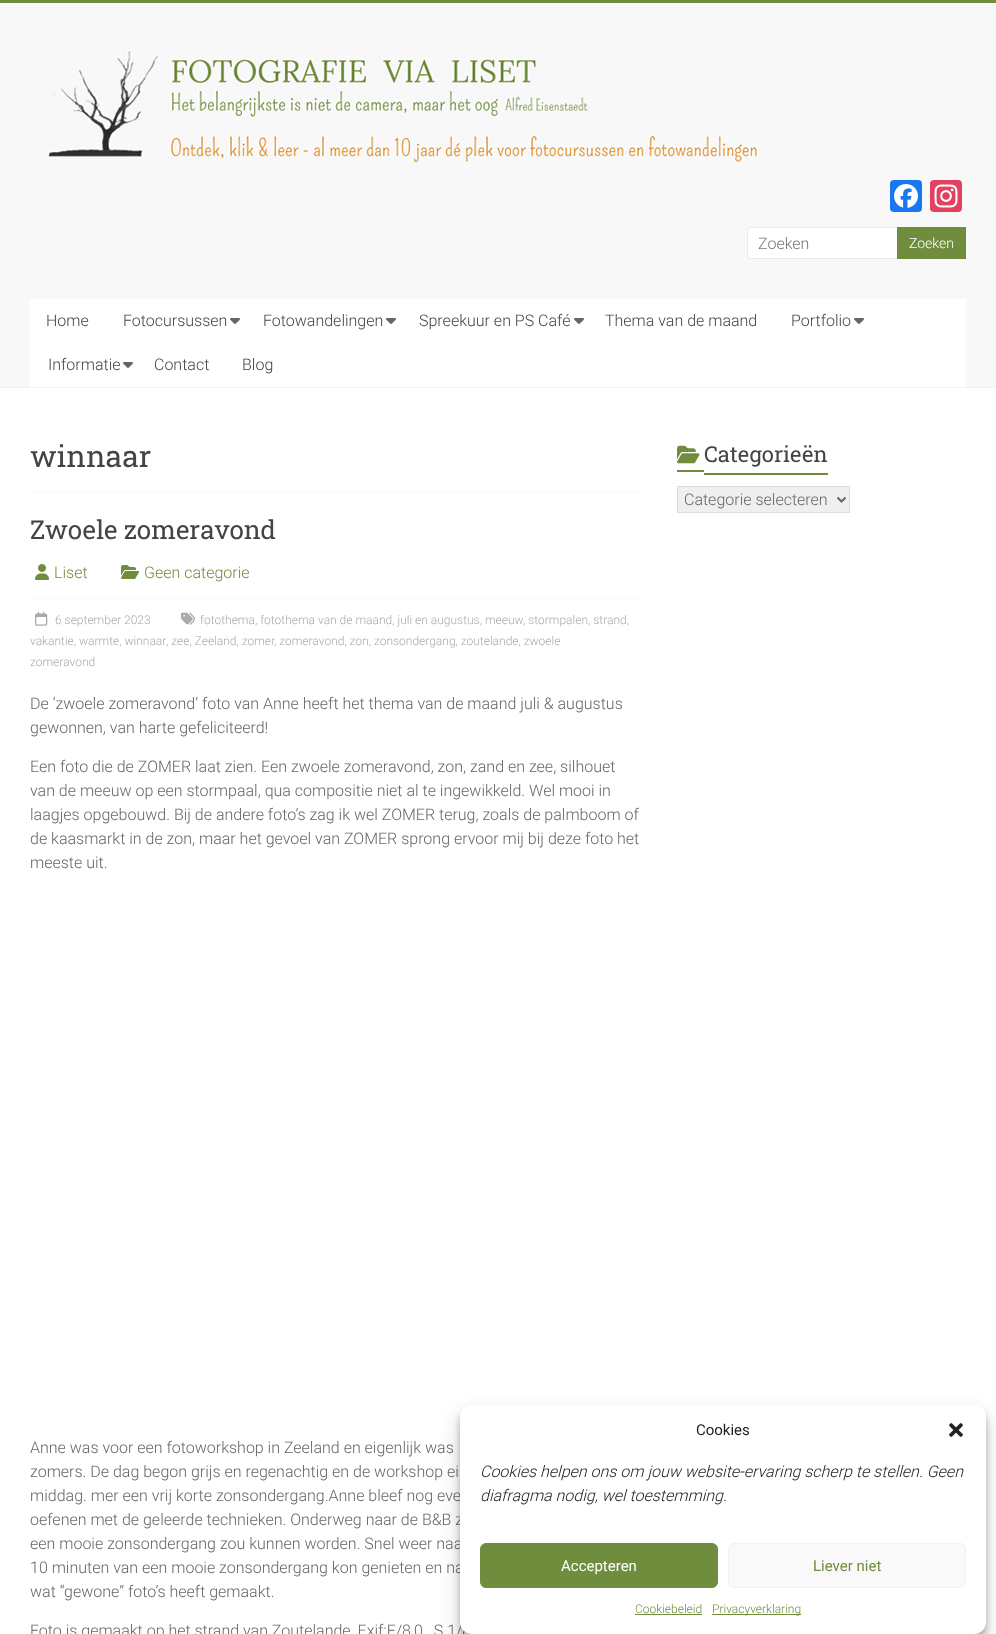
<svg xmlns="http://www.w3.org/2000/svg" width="996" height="1634">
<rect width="100%" height="100%" fill="#fff"/>
<rect width="996" height="3" fill="#708d3d"/>
<rect y="3" width="996" height="384" fill="#f8f8f8"/>
<rect y="387" width="996" height="1" fill="#f2f2f2"/>
<image x="47" y="50" width="711" height="114" href="media/1.png"/>
<rect x="890" y="180" width="32" height="32" rx="4" fill="#1877f2"/>
<image x="894" y="184" width="24" height="24" href="media/2.png"/>
<rect x="930" y="180" width="32" height="32" rx="4" fill="#e4405f"/>
<image x="934" y="184" width="24" height="24" href="media/3.png"/>
<path d="M750 227h147v32h-147c-1.5 0-3-1.5-3-3v-26c0-1.5 1.5-3 3-3z" fill="#fff"/>
<path d="M750 227h147v32h-147c-2 0-3-1-3-3v-26c0-2 1-3 3-3zm0 1h147v30h-147c-1 0-2-1-2-2v-26c0-1 1-2 2-2z" fill="#eaeaea" fill-rule="evenodd"/>
<text x="758" y="249" style="font-family:Roboto;font-size:16px;font-weight:300;fill:#757575">Zoeken</text>
<rect x="897" y="227" width="69" height="32" fill="#708d3d"/>
<text x="909" y="248" style="font-family:Roboto;font-size:14px;font-weight:300;fill:#fff">Zoeken</text>
<rect x="30" y="299" width="936" height="88" fill="#fff"/>
<text x="46" y="326" style="font-family:Roboto;font-size:16px;font-weight:300;fill:#444">Home</text>
<text x="123" y="326" style="font-family:Roboto;font-size:16px;font-weight:300;fill:#444">Fotocursussen</text>
<image x="230" y="318" width="10" height="6" href="media/4.png"/>
<text x="263" y="326" style="font-family:Roboto;font-size:16px;font-weight:300;fill:#444">Fotowandelingen</text>
<image x="386" y="318" width="10" height="6" href="media/4.png"/>
<text x="419" y="326" style="font-family:Roboto;font-size:16px;font-weight:300;fill:#444">Spreekuur en PS Café</text>
<image x="574" y="318" width="10" height="6" href="media/4.png"/>
<text x="605" y="326" style="font-family:Roboto;font-size:16px;font-weight:300;fill:#444">Thema van de maand</text>
<text x="791" y="326" style="font-family:Roboto;font-size:16px;font-weight:300;fill:#444">Portfolio</text>
<image x="854" y="318" width="10" height="6" href="media/4.png"/>
<text x="48" y="370" style="font-family:Roboto;font-size:16px;font-weight:300;fill:#444">Informatie</text>
<image x="123" y="362" width="10" height="6" href="media/4.png"/>
<text x="154" y="370" style="font-family:Roboto;font-size:16px;font-weight:300;fill:#444">Contact</text>
<text x="242" y="370" style="font-family:Roboto;font-size:16px;font-weight:300;fill:#444">Blog</text>
<rect x="30" y="492" width="613" height="1" fill="#f8f8f8"/>
<text x="30" y="467" style="font-family:Roboto Slab;font-size:30px;fill:#444">winnaar</text>
<text x="30" y="539" style="font-family:Roboto Slab;font-size:26px;fill:#444">Zwoele zomeravond</text>
<image x="35" y="564" width="14" height="16" href="media/5.png"/>
<text x="54" y="578" style="font-family:Roboto;font-size:16px;font-weight:300;fill:#708d3d">Liset</text>
<image x="121" y="565" width="18" height="14" href="media/6.png"/>
<text x="144" y="578" style="font-family:Roboto;font-size:16px;font-weight:300;fill:#708d3d">Geen categorie</text>
<rect x="30" y="598" width="613" height="1" fill="#f8f8f8"/>
<image x="181" y="612" width="14" height="13" href="media/7.png"/>
<text x="200" y="624" style="font-family:Roboto;font-size:12px;font-weight:300;fill:#aaa">fotothema, fotothema van de maand, juli en augustus, meeuw</text>
<text x="523" y="624" style="font-family:Roboto;font-size:12px;font-weight:300;fill:#aaa">, stormpalen, strand,</text>
<text x="30" y="645" style="font-family:Roboto;font-size:12px;font-weight:300;fill:#aaa">vakantie, warmte, winnaar</text>
<text x="166" y="645" style="font-family:Roboto;font-size:12px;font-weight:300;fill:#aaa">, zee, Zeeland, zomer</text>
<text x="274" y="645" style="font-family:Roboto;font-size:12px;font-weight:300;fill:#aaa">, zomeravond, zon, zonsondergang, zoutelande, zwoele</text>
<text x="30" y="666" style="font-family:Roboto;font-size:12px;font-weight:300;fill:#aaa">zomeravond</text>
<image x="35" y="611" width="13" height="15" href="media/8.png"/>
<text x="55" y="624" style="font-family:Roboto;font-size:12px;font-weight:300;fill:#aaa">6 september 2023</text>
<text x="30" y="709" style="font-family:Roboto;font-size:16px;font-weight:300;fill:#666">De ‘zwoele zomeravond’ foto van Anne heeft het thema van de maand juli &amp; augustus</text>
<text x="30" y="733" style="font-family:Roboto;font-size:16px;font-weight:300;fill:#666">gewonnen, van harte gefeliciteerd!</text>
<text x="30" y="772" style="font-family:Roboto;font-size:16px;font-weight:300;fill:#666">Een foto die de ZOMER laat zien. Een zwoele zomeravond, zon, zand en zee, silhouet</text>
<text x="30" y="796" style="font-family:Roboto;font-size:16px;font-weight:300;fill:#666">van de meeuw op een stormpaal, qua compositie niet al te ingewikkeld. Wel mooi in</text>
<text x="30" y="820" style="font-family:Roboto;font-size:16px;font-weight:300;fill:#666">laagjes opgebouwd. Bij de andere foto’s zag ik wel ZOMER terug, zoals de palmboom of</text>
<text x="30" y="844" style="font-family:Roboto;font-size:16px;font-weight:300;fill:#666">de kaasmarkt in de zon, maar het gevoel van ZOMER sprong ervoor mij bij deze foto het</text>
<text x="30" y="868" style="font-family:Roboto;font-size:16px;font-weight:300;fill:#666">meeste uit.</text>
<text x="30" y="1453" style="font-family:Roboto;font-size:16px;font-weight:300;fill:#666">Anne was voor een fotoworkshop in Zeeland en eigenlijk was</text>
<text x="30" y="1477" style="font-family:Roboto;font-size:16px;font-weight:300;fill:#666">zomers. De dag begon grijs en regenachtig en de workshop ei</text>
<text x="30" y="1501" style="font-family:Roboto;font-size:16px;font-weight:300;fill:#666">middag. mer een vrij korte zonsondergang.Anne bleef nog eve</text>
<text x="30" y="1525" style="font-family:Roboto;font-size:16px;font-weight:300;fill:#666">oefenen met de geleerde technieken. Onderweg naar de B&amp;B z</text>
<text x="30" y="1549" style="font-family:Roboto;font-size:16px;font-weight:300;fill:#666">een mooie zonsondergang zou kunnen worden. Snel weer naa</text>
<text x="30" y="1573" style="font-family:Roboto;font-size:16px;font-weight:300;fill:#666">10 minuten van een mooie zonsondergang kon genieten en na</text>
<text x="30" y="1597" style="font-family:Roboto;font-size:16px;font-weight:300;fill:#666">wat “gewone” foto’s heeft gemaakt.</text>
<text x="30" y="1636" style="font-family:Roboto;font-size:16px;font-weight:300;fill:#666">Foto is gemaakt op het strand van Zoutelande, Exif:F/8,0 , S 1/8</text>
<image x="677" y="445" width="23" height="19" href="media/9.png"/>
<text x="704" y="462" style="font-family:Roboto Slab;font-size:22px;fill:#444">Categorieën</text>
<rect x="677" y="470" width="27" height="2" fill="#708d3d"/>
<rect x="704" y="473" width="124" height="2" fill="#708d3d"/>
<rect x="677.5" y="486.5" width="172" height="26" fill="#efefef" stroke="#ddd"/>
<path d="M837.5 497.5l4 4l4-4" fill="none" stroke="#666" stroke-width="2"/>
<text x="684" y="505" style="font-family:Roboto;font-size:16px;font-weight:300;fill:#666">Categorie selecteren</text>
<rect x="460" y="1411" width="526" height="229" rx="12" fill="#0000003b" filter="blur(3px)"/>
<rect x="460" y="1415" width="526" height="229" rx="12" fill="#00000030" filter="blur(10px)"/>
<rect x="460" y="1405" width="526" height="229" rx="12" fill="#fff"/>
<text x="696" y="1435" style="font-family:Roboto;font-size:15px;fill:#222">Cookies</text>
<image x="949" y="1423" width="14" height="14" href="media/10.png"/>
<text x="480" y="1477" style="font-family:Roboto;font-size:16px;font-weight:300;font-style:italic;fill:#222">Cookies helpen ons om jouw website-ervaring scherp te stellen. Geen</text>
<text x="480" y="1501" style="font-family:Roboto;font-size:16px;font-weight:300;font-style:italic;fill:#222">diafragma nodig, wel toestemming.</text>
<rect x="480.5" y="1543.5" width="237" height="44" rx="5.5" fill="#708d3d" stroke="#708d3d"/>
<text x="561" y="1571" style="font-family:Roboto;font-size:15px;fill:#fff">Accepteren</text>
<rect x="728.5" y="1543.5" width="237" height="44" rx="5.5" fill="#f9f9f9" stroke="#f2f2f2"/>
<text x="813" y="1571" style="font-family:Roboto;font-size:15px;fill:#708d3d">Liever niet</text>
<text x="635" y="1613" style="font-family:Roboto;font-size:12px;font-weight:300;fill:#708d3d">Cookiebeleid</text>
<rect x="635" y="1614" width="67" height="1" fill="#708d3d"/>
<rect x="712" y="1614" width="89" height="1" fill="#708d3d"/>
<text x="712" y="1613" style="font-family:Roboto;font-size:12px;font-weight:300;fill:#708d3d">Privacyverklaring</text>
</svg>
